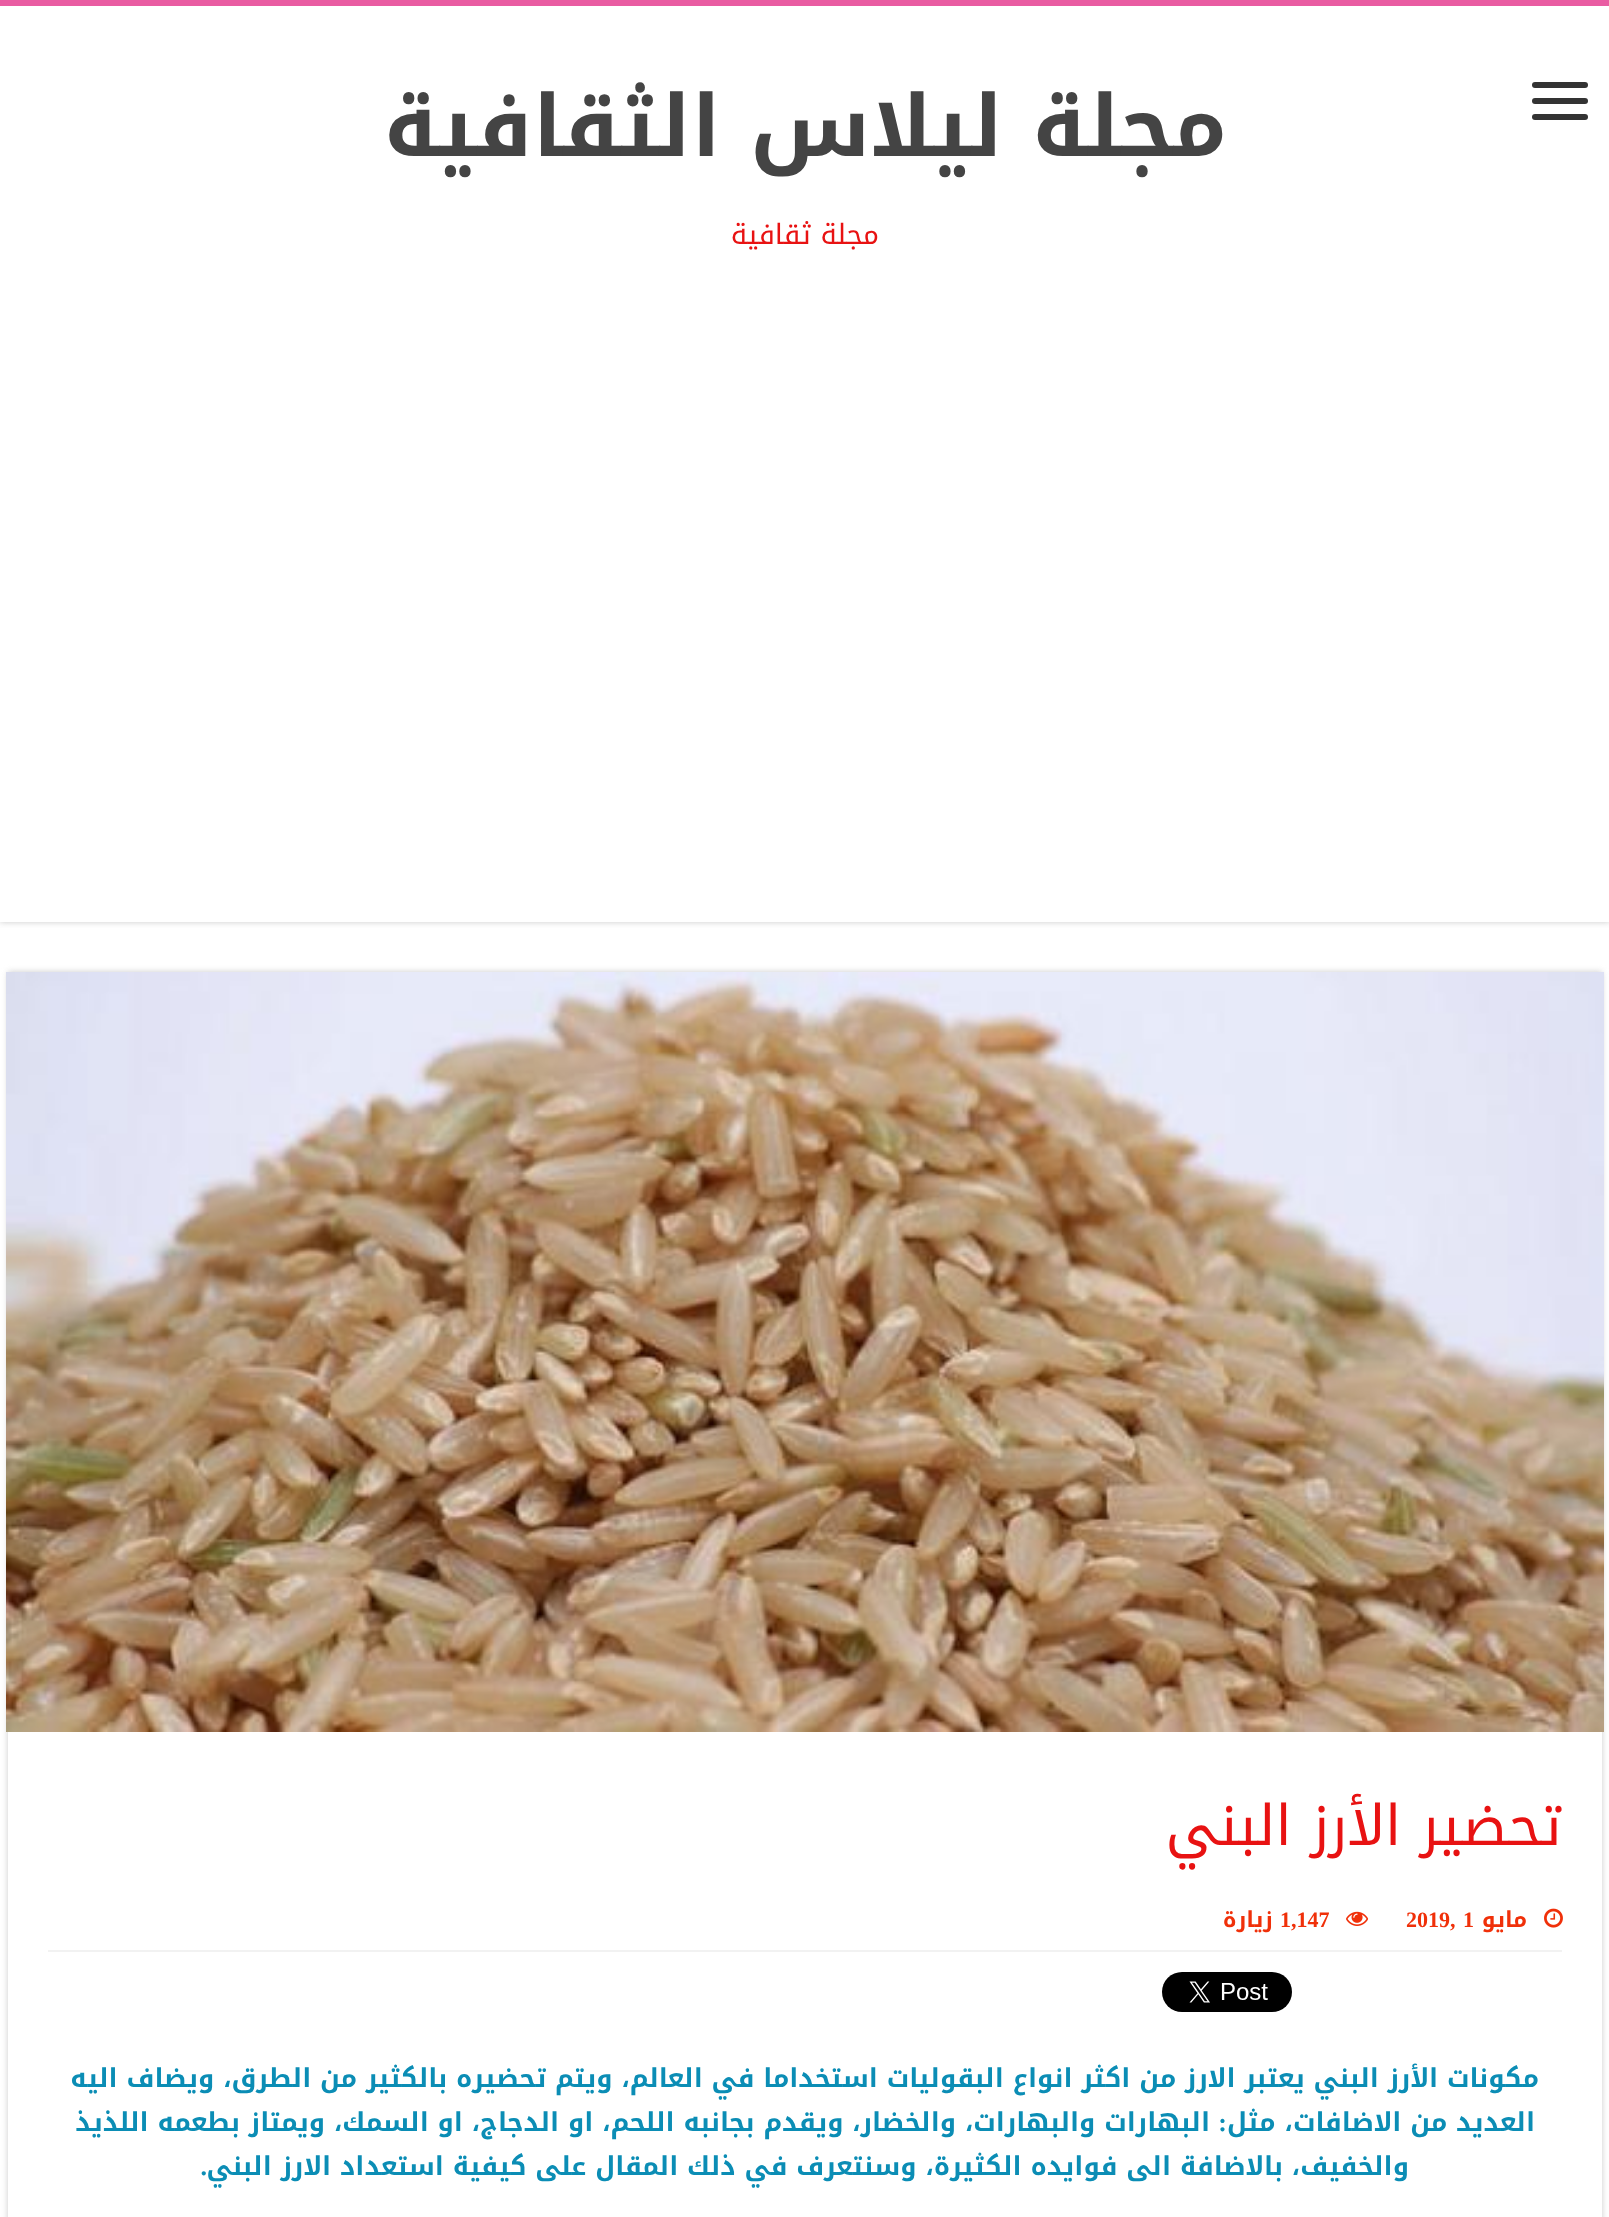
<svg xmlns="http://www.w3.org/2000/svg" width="1609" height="2217">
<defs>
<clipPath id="clip1"><rect x="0" y="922" width="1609" height="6"/></clipPath>
<clipPath id="clip2"><path d="M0 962h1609v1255h-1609zm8 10h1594v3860h-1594z" clip-rule="evenodd"/></clipPath>
</defs>
<rect width="100%" height="100%" fill="#fff"/>
<g clip-path="url(#clip1)">
<rect width="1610" height="922" fill="#cacaca" filter="blur(3px)"/>
</g>
<rect width="1609" height="6" fill="#e95ca2"/>
<rect x="1532" y="82" width="56" height="6" rx="3" fill="#333"/>
<rect x="1532" y="98" width="56" height="6" rx="3" fill="#333"/>
<rect x="1532" y="114" width="56" height="6" rx="3" fill="#333"/>
<text x="1227" y="156" style="font-family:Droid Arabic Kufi;font-size:85.25px;font-weight:bold;direction:rtl;fill:#444">مجلة ليلاس الثقافية</text>
<text x="879" y="244" style="font-family:Droid Arabic Kufi;font-size:28px;direction:rtl;fill:#e81212">مجلة ثقافية</text>
<g clip-path="url(#clip2)">
<rect x="8" y="972" width="1594" height="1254" fill="#cacaca" filter="blur(3px)"/>
</g>
<image x="6" y="972" width="1598" height="760" href="media/1.png"/>
<text x="1562" y="1845" style="font-family:Droid Arabic Kufi;font-size:56px;direction:rtl;fill:#e81212">تحضير الأرز البني</text>
<rect x="48" y="1950" width="1514" height="2" fill="#f2f2f2"/>
<image x="1544" y="1908" width="19" height="20" href="media/2.png"/>
<text x="1527" y="1927" style="font-family:Droid Arabic Kufi;font-size:22px;font-weight:bold;direction:rtl;fill:#f03009">مايو</text>
<text x="1463" y="1927" style="font-family:Liberation Serif;font-size:22px;font-weight:bold;fill:#f03009">1</text>
<text x="1406" y="1927" style="font-family:Liberation Serif;font-size:22px;font-weight:bold;fill:#f03009">2019,</text>
<image x="1346" y="1911" width="23" height="15" href="media/3.png"/>
<text x="1280" y="1927" style="font-family:Liberation Serif;font-size:22px;font-weight:bold;fill:#f03009">1,147</text>
<text x="1273" y="1927" style="font-family:Droid Arabic Kufi;font-size:22px;font-weight:bold;direction:rtl;fill:#f03009">زيارة</text>
<image x="1162" y="1972" width="130" height="40" href="media/4.png"/>
<text x="1539" y="2087" style="font-family:Droid Arabic Kufi;font-size:26px;font-weight:bold;direction:rtl;fill:#0b8db5">مكونات الأرز البني يعتبر الارز من اكثر انواع البقوليات استخداما في العالم، ويتم تحضيره بالكثير من الطرق، ويضاف اليه</text>
<text x="1535" y="2131" style="font-family:Droid Arabic Kufi;font-size:26px;font-weight:bold;direction:rtl;fill:#0b8db5">العديد من الاضافات، مثل</text>
<text x="1227" y="2131" style="font-family:Liberation Serif;font-size:26px;font-weight:bold;direction:rtl;fill:#0b8db5">:</text>
<text x="1210" y="2131" style="font-family:Droid Arabic Kufi;font-size:26px;font-weight:bold;direction:rtl;fill:#0b8db5">البهارات والبهارات، والخضار، ويقدم بجانبه اللحم، او الدجاج، او السمك، ويمتاز بطعمه اللذيذ</text>
<text x="1409" y="2175" style="font-family:Droid Arabic Kufi;font-size:26px;font-weight:bold;direction:rtl;fill:#0b8db5">والخفيف، بالاضافة الى فوايده الكثيرة، وسنتعرف في ذلك المقال على كيفية استعداد الارز البني</text>
<text x="207" y="2175" style="font-family:Liberation Serif;font-size:26px;font-weight:bold;direction:rtl;fill:#0b8db5">.</text>
</svg>
